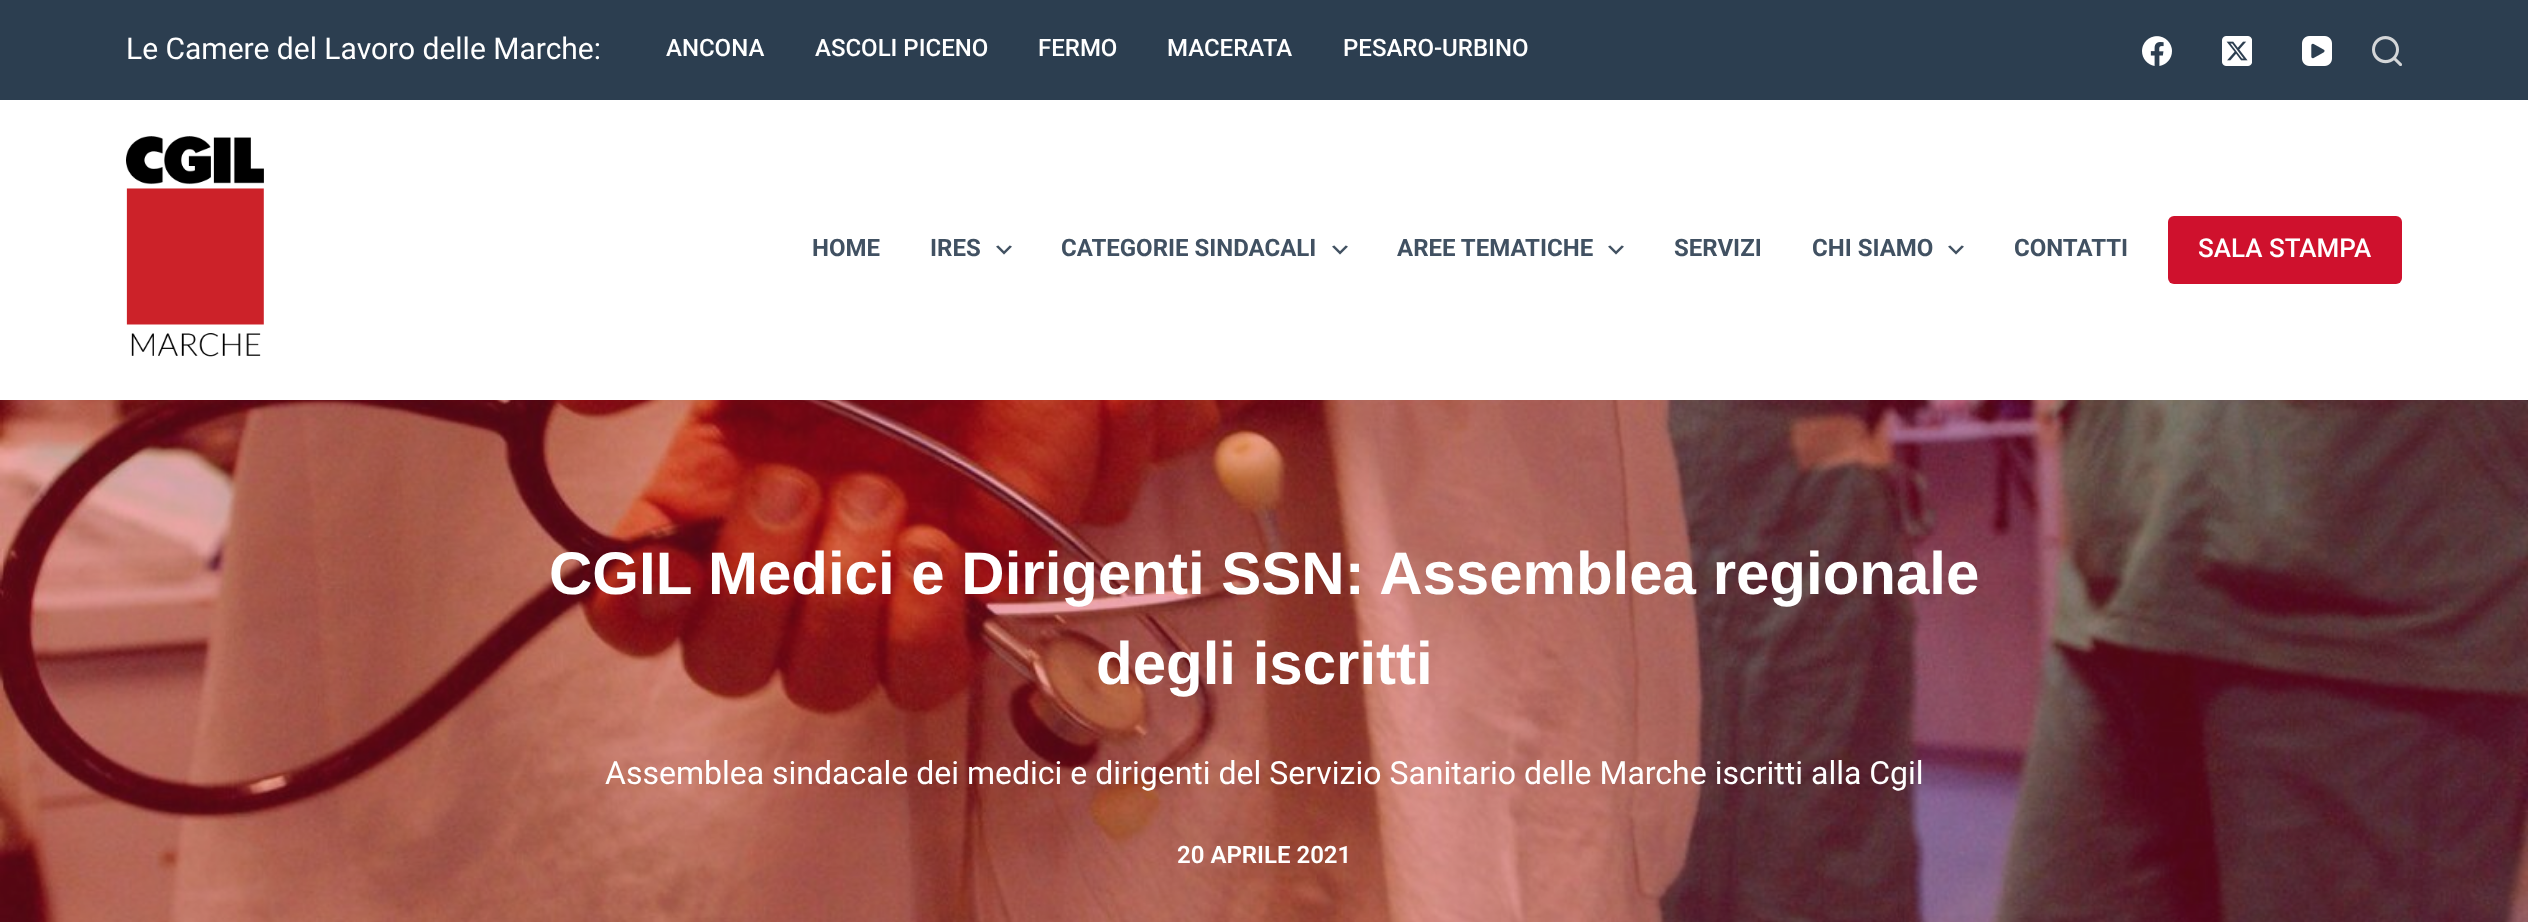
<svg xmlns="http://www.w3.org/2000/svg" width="2528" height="922">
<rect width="100%" height="100%" fill="#fff"/>
<rect width="2528" height="100" fill="#2c3e50"/>
<text x="126" y="59" style="font-family:Roboto;font-size:30px;fill:#fff">Le Camere del Lavoro delle Marche:</text>
<text x="666" y="56" style="font-family:Roboto;font-size:24px;font-weight:500;fill:#fff">ANCONA</text>
<text x="815" y="56" style="font-family:Roboto;font-size:24px;font-weight:500;fill:#fff">ASCOLI PICENO</text>
<text x="1038" y="56" style="font-family:Roboto;font-size:24px;font-weight:500;fill:#fff">FERMO</text>
<text x="1167" y="56" style="font-family:Roboto;font-size:24px;font-weight:500;fill:#fff">MACERATA</text>
<text x="1343" y="56" style="font-family:Roboto;font-size:24px;font-weight:500;fill:#fff">PESARO-URBINO</text>
<image x="2142" y="36" width="30" height="30" href="media/1.png"/>
<image x="2222" y="36" width="30" height="30" href="media/2.png"/>
<image x="2302" y="36" width="30" height="30" href="media/3.png"/>
<image x="2372" y="36" width="30" height="30" href="media/4.png"/>
<image x="126" y="136" width="138" height="221" href="media/5.png"/>
<text x="812" y="256" style="font-family:Roboto;font-size:24px;font-weight:bold;fill:#415162">HOME</text>
<text x="930" y="256" style="font-family:Roboto;font-size:24px;font-weight:bold;fill:#415162">IRES</text>
<image x="996" y="245" width="16" height="10" href="media/6.png"/>
<text x="1061" y="256" style="font-family:Roboto;font-size:24px;font-weight:bold;fill:#415162">CATEGORIE SINDACALI</text>
<image x="1332" y="245" width="16" height="10" href="media/6.png"/>
<text x="1397" y="256" style="font-family:Roboto;font-size:24px;font-weight:bold;fill:#415162">AREE TEMATICHE</text>
<image x="1608" y="245" width="16" height="10" href="media/6.png"/>
<text x="1674" y="256" style="font-family:Roboto;font-size:24px;font-weight:bold;fill:#415162">SERVIZI</text>
<text x="1812" y="256" style="font-family:Roboto;font-size:24px;font-weight:bold;fill:#415162">CHI SIAMO</text>
<image x="1948" y="245" width="16" height="10" href="media/6.png"/>
<text x="2014" y="256" style="font-family:Roboto;font-size:24px;font-weight:bold;fill:#415162">CONTATTI</text>
<rect x="2168" y="216" width="234" height="68" rx="6" fill="#cf112d"/>
<text x="2198" y="257" style="font-family:Roboto;font-size:26px;font-weight:500;fill:#fff">SALA STAMPA</text>
<image x="0" y="400" width="2528" height="522" href="media/7.png"/>
<text x="549" y="594" style="font-family:Liberation Sans;font-size:60px;font-weight:bold;fill:#fff">CGIL Medici e Dirigenti SSN: Assemblea regionale</text>
<text x="1096" y="684" style="font-family:Liberation Sans;font-size:60px;font-weight:bold;fill:#fff">degli iscritti</text>
<text x="605" y="784" style="font-family:Roboto;font-size:32px;fill:#fff">Assemblea sindacale dei medici e dirigenti del Servizio Sanitario delle Marche iscritti alla Cgil</text>
<text x="1177" y="863" style="font-family:Roboto;font-size:24px;font-weight:600;fill:#fff">20 APRILE 2021</text>
</svg>
